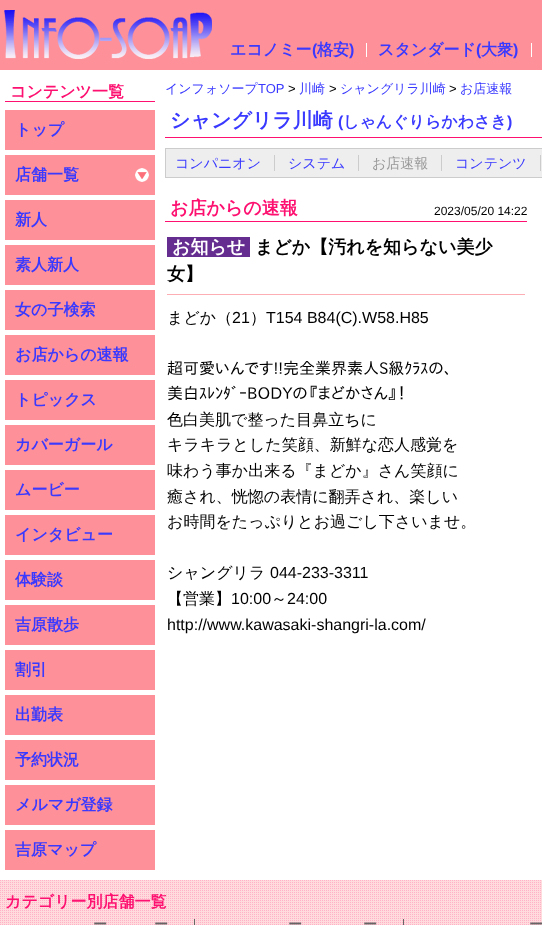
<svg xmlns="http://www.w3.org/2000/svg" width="542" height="925">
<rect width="100%" height="100%" fill="#fff"/>
<rect width="542" height="70" fill="#fe9099"/>
<image x="4" y="10" width="208" height="49" href="media/1.png"/>
<text x="230" y="55" style="font-family:WenQuanYi Zen Hei;font-size:16px;font-weight:bold;fill:#3939ff">エコノミー</text>
<text x="312" y="55" style="font-family:Liberation Sans;font-size:16px;font-weight:bold;fill:#3939ff">(</text>
<text x="317" y="55" style="font-family:WenQuanYi Zen Hei;font-size:16px;font-weight:bold;fill:#3939ff">格安</text>
<text x="349" y="55" style="font-family:Liberation Sans;font-size:16px;font-weight:bold;fill:#3939ff">)</text>
<rect x="366" y="43" width="1" height="14" fill="#fff"/>
<text x="378" y="55" style="font-family:WenQuanYi Zen Hei;font-size:16px;font-weight:bold;fill:#3939ff">スタンダード</text>
<text x="476" y="55" style="font-family:Liberation Sans;font-size:16px;font-weight:bold;fill:#3939ff">(</text>
<text x="481" y="55" style="font-family:WenQuanYi Zen Hei;font-size:16px;font-weight:bold;fill:#3939ff">大衆</text>
<text x="513" y="55" style="font-family:Liberation Sans;font-size:16px;font-weight:bold;fill:#3939ff">)</text>
<rect x="531" y="43" width="1" height="14" fill="#fff"/>
<rect x="5" y="101" width="150" height="1" fill="#fd1070"/>
<text x="10" y="97" style="font-family:WenQuanYi Zen Hei;font-size:16px;font-weight:bold;fill:#fd1070">コンテンツ一覧</text>
<rect x="5" y="110" width="150" height="40" fill="#fe9099"/>
<text x="15" y="135" style="font-family:WenQuanYi Zen Hei;font-size:16px;font-weight:bold;fill:#3939ff">トップ</text>
<rect x="5" y="155" width="150" height="40" fill="#fe9099"/>
<image x="135" y="168" width="14" height="14" href="media/2.png"/>
<text x="15" y="180" style="font-family:WenQuanYi Zen Hei;font-size:16px;font-weight:bold;fill:#3939ff">店舗一覧</text>
<rect x="5" y="200" width="150" height="40" fill="#fe9099"/>
<text x="15" y="225" style="font-family:WenQuanYi Zen Hei;font-size:16px;font-weight:bold;fill:#3939ff">新人</text>
<rect x="5" y="245" width="150" height="40" fill="#fe9099"/>
<text x="15" y="270" style="font-family:WenQuanYi Zen Hei;font-size:16px;font-weight:bold;fill:#3939ff">素人新人</text>
<rect x="5" y="290" width="150" height="40" fill="#fe9099"/>
<text x="15" y="315" style="font-family:WenQuanYi Zen Hei;font-size:16px;font-weight:bold;fill:#3939ff">女の子検索</text>
<rect x="5" y="335" width="150" height="40" fill="#fe9099"/>
<text x="15" y="360" style="font-family:WenQuanYi Zen Hei;font-size:16px;font-weight:bold;fill:#3939ff">お店からの速報</text>
<rect x="5" y="380" width="150" height="40" fill="#fe9099"/>
<text x="15" y="405" style="font-family:WenQuanYi Zen Hei;font-size:16px;font-weight:bold;fill:#3939ff">トピックス</text>
<rect x="5" y="425" width="150" height="40" fill="#fe9099"/>
<text x="15" y="450" style="font-family:WenQuanYi Zen Hei;font-size:16px;font-weight:bold;fill:#3939ff">カバーガール</text>
<rect x="5" y="470" width="150" height="40" fill="#fe9099"/>
<text x="15" y="495" style="font-family:WenQuanYi Zen Hei;font-size:16px;font-weight:bold;fill:#3939ff">ムービー</text>
<rect x="5" y="515" width="150" height="40" fill="#fe9099"/>
<text x="15" y="540" style="font-family:WenQuanYi Zen Hei;font-size:16px;font-weight:bold;fill:#3939ff">インタビュー</text>
<rect x="5" y="560" width="150" height="40" fill="#fe9099"/>
<text x="15" y="585" style="font-family:WenQuanYi Zen Hei;font-size:16px;font-weight:bold;fill:#3939ff">体験談</text>
<rect x="5" y="605" width="150" height="40" fill="#fe9099"/>
<text x="15" y="630" style="font-family:WenQuanYi Zen Hei;font-size:16px;font-weight:bold;fill:#3939ff">吉原散歩</text>
<rect x="5" y="650" width="150" height="40" fill="#fe9099"/>
<text x="15" y="675" style="font-family:WenQuanYi Zen Hei;font-size:16px;font-weight:bold;fill:#3939ff">割引</text>
<rect x="5" y="695" width="150" height="40" fill="#fe9099"/>
<text x="15" y="720" style="font-family:WenQuanYi Zen Hei;font-size:16px;font-weight:bold;fill:#3939ff">出勤表</text>
<rect x="5" y="740" width="150" height="40" fill="#fe9099"/>
<text x="15" y="765" style="font-family:WenQuanYi Zen Hei;font-size:16px;font-weight:bold;fill:#3939ff">予約状況</text>
<rect x="5" y="785" width="150" height="40" fill="#fe9099"/>
<text x="15" y="810" style="font-family:WenQuanYi Zen Hei;font-size:16px;font-weight:bold;fill:#3939ff">メルマガ登録</text>
<rect x="5" y="830" width="150" height="40" fill="#fe9099"/>
<text x="15" y="855" style="font-family:WenQuanYi Zen Hei;font-size:16px;font-weight:bold;fill:#3939ff">吉原マップ</text>
<text x="165" y="93" style="font-family:WenQuanYi Zen Hei;font-size:13px;font-weight:500;fill:#3939ff">インフォソープ</text>
<text x="258" y="93" style="font-family:Liberation Sans;font-size:13px;fill:#3939ff">TOP</text>
<text x="288" y="93" style="font-family:Liberation Sans;font-size:13px;fill:#000">&gt;</text>
<text x="299" y="93" style="font-family:WenQuanYi Zen Hei;font-size:13px;font-weight:500;fill:#3939ff">川崎</text>
<text x="329" y="93" style="font-family:Liberation Sans;font-size:13px;fill:#000">&gt;</text>
<text x="340" y="93" style="font-family:WenQuanYi Zen Hei;font-size:13px;font-weight:500;fill:#3939ff">シャングリラ川崎</text>
<text x="449" y="93" style="font-family:Liberation Sans;font-size:13px;fill:#000">&gt;</text>
<text x="460" y="93" style="font-family:WenQuanYi Zen Hei;font-size:13px;font-weight:500;fill:#3939ff">お店速報</text>
<rect x="165" y="137" width="377" height="1" fill="#fd1070"/>
<text x="170" y="127" style="font-family:WenQuanYi Zen Hei;font-size:20px;font-weight:bold;fill:#3939ff">シャングリラ川崎</text>
<text x="338" y="127" style="font-family:Liberation Sans;font-size:16px;font-weight:bold;fill:#3939ff">(</text>
<text x="343" y="127" style="font-family:WenQuanYi Zen Hei;font-size:16px;font-weight:bold;fill:#3939ff">しゃんぐりらかわさき</text>
<text x="507" y="127" style="font-family:Liberation Sans;font-size:16px;font-weight:bold;fill:#3939ff">)</text>
<rect x="165.5" y="148.5" width="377" height="29" fill="#eee" stroke="#ccc"/>
<text x="175" y="168" style="font-family:WenQuanYi Zen Hei;font-size:14px;font-weight:500;fill:#3939ff">コンパニオン</text>
<rect x="274" y="155" width="1" height="16" fill="#ccc"/>
<text x="288" y="168" style="font-family:WenQuanYi Zen Hei;font-size:14px;font-weight:500;fill:#3939ff">システム</text>
<rect x="358" y="155" width="1" height="16" fill="#ccc"/>
<text x="372" y="168" style="font-family:WenQuanYi Zen Hei;font-size:14px;font-weight:500;fill:#999">お店速報</text>
<rect x="441" y="155" width="1" height="16" fill="#ccc"/>
<text x="455" y="168" style="font-family:WenQuanYi Zen Hei;font-size:14px;font-weight:500;fill:#3939ff">コンテンツ</text>
<rect x="540" y="155" width="1" height="16" fill="#ccc"/>
<rect x="165" y="221" width="362" height="1" fill="#fd1070"/>
<text x="170" y="214" style="font-family:WenQuanYi Zen Hei;font-size:18px;font-weight:bold;fill:#fd1070">お店からの速報</text>
<text x="434" y="215" style="font-family:Liberation Sans;font-size:12px;fill:#000">2023/05/20 14:22</text>
<rect x="167" y="294" width="358" height="1" fill="#fcaeb4"/>
<rect x="167" y="237" width="83" height="20" fill="#662d91"/>
<text x="172" y="253" style="font-family:WenQuanYi Zen Hei;font-size:18px;font-weight:bold;fill:#fff">お知らせ</text>
<text x="255" y="253" style="font-family:WenQuanYi Zen Hei;font-size:18px;font-weight:bold;fill:#000">まどか【汚れを知らない美少</text>
<text x="167" y="280" style="font-family:WenQuanYi Zen Hei;font-size:18px;font-weight:bold;fill:#000">女】</text>
<text x="167" y="323" style="font-family:WenQuanYi Zen Hei;font-size:16px;font-weight:500;fill:#000">まどか（</text>
<text x="232" y="323" style="font-family:Liberation Sans;font-size:16px;fill:#000">21</text>
<text x="250" y="323" style="font-family:WenQuanYi Zen Hei;font-size:16px;font-weight:500;fill:#000">）</text>
<text x="266" y="323" style="font-family:Liberation Sans;font-size:16px;fill:#000">T154 B84(C).W58.H85</text>
<text x="167" y="374" style="font-family:IPAPGothic;font-size:16px;fill:#000">超可愛いんです!!完全業界素人S級ｸﾗｽの、</text>
<text x="167" y="399" style="font-family:IPAPGothic;font-size:16px;fill:#000">美白ｽﾚﾝﾀﾞｰBODYの『まどかさん』！</text>
<text x="167" y="425" style="font-family:WenQuanYi Zen Hei;font-size:16px;font-weight:500;fill:#000">色白美肌で整った目鼻立ちに</text>
<text x="167" y="450" style="font-family:WenQuanYi Zen Hei;font-size:16px;font-weight:500;fill:#000">キラキラとした笑顔、新鮮な恋人感覚を</text>
<text x="167" y="476" style="font-family:WenQuanYi Zen Hei;font-size:16px;font-weight:500;fill:#000">味わう事か出来る『まどか』さん笑顔に</text>
<text x="167" y="502" style="font-family:WenQuanYi Zen Hei;font-size:16px;font-weight:500;fill:#000">癒され、恍惚の表情に翻弄され、楽しい</text>
<text x="167" y="527" style="font-family:WenQuanYi Zen Hei;font-size:16px;font-weight:500;fill:#000">お時間をたっぷりとお過ごし下さいませ。</text>
<text x="167" y="578" style="font-family:WenQuanYi Zen Hei;font-size:16px;font-weight:500;fill:#000">シャングリラ</text>
<text x="270" y="578" style="font-family:Liberation Sans;font-size:16px;fill:#000">044-233-3311</text>
<text x="167" y="604" style="font-family:WenQuanYi Zen Hei;font-size:16px;font-weight:500;fill:#000">【営業】</text>
<text x="231" y="604" style="font-family:Liberation Sans;font-size:16px;fill:#000">10:00</text>
<text x="271" y="604" style="font-family:WenQuanYi Zen Hei;font-size:16px;font-weight:500;fill:#000">～</text>
<text x="287" y="604" style="font-family:Liberation Sans;font-size:16px;fill:#000">24:00</text>
<text x="167" y="630" style="font-family:Liberation Sans;font-size:16px;fill:#000">http://www.kawasaki-shangri-la.com/</text>
<rect y="880" width="542" height="45" fill="#ffdbde"/>
<image x="0" y="880" width="541" height="45" href="media/3.png"/>
<text x="5" y="907" style="font-family:WenQuanYi Zen Hei;font-size:16px;font-weight:bold;fill:#fd1070">カテゴリー別店舗一覧</text>
<text x="93" y="929" style="font-family:WenQuanYi Zen Hei;font-size:14px;font-weight:bold;fill:#666">ー</text>
<text x="154" y="929" style="font-family:WenQuanYi Zen Hei;font-size:14px;font-weight:bold;fill:#666">ー</text>
<rect x="194" y="919" width="1" height="6" fill="#666"/>
<text x="288" y="929" style="font-family:WenQuanYi Zen Hei;font-size:14px;font-weight:bold;fill:#666">ー</text>
<text x="363" y="929" style="font-family:WenQuanYi Zen Hei;font-size:14px;font-weight:bold;fill:#666">ー</text>
<rect x="403" y="919" width="1" height="6" fill="#666"/>
<text x="529" y="929" style="font-family:WenQuanYi Zen Hei;font-size:14px;font-weight:bold;fill:#666">ー</text>
</svg>
